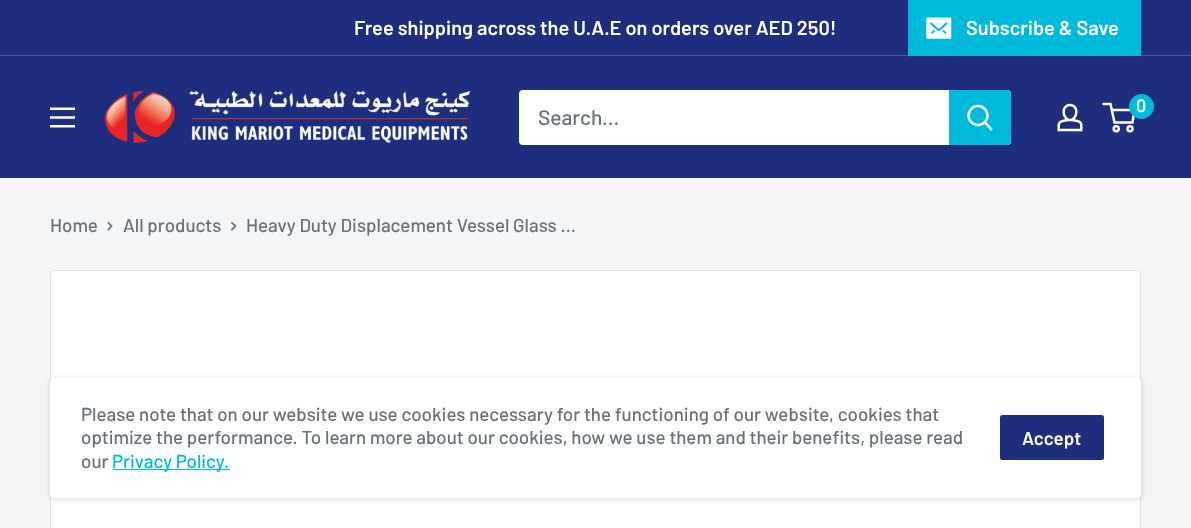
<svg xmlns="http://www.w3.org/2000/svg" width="1191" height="528">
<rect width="100%" height="100%" fill="#f3f5f6"/>
<rect width="1191" height="55" fill="#1e2d7d"/>
<rect y="55" width="1191" height="1" fill="#46549f"/>
<text x="354" y="35" style="font-family:Barlow;font-size:20px;font-weight:600;fill:#fff">Free shipping across the U.A.E on orders over AED 250!</text>
<rect x="908" width="233" height="56" fill="#00badb"/>
<image x="926" y="17" width="26" height="22" href="media/1.png"/>
<text x="966" y="35" style="font-family:Barlow;font-size:20px;font-weight:600;fill:#fff">Subscribe &amp; Save</text>
<rect y="56" width="1191" height="122" fill="#1e2d7d"/>
<image x="50" y="107" width="25" height="21" href="media/2.png"/>
<image x="104" y="90" width="367" height="53" href="media/3.png"/>
<rect x="519" y="90" width="492" height="55" rx="4" fill="#fff"/>
<text x="538" y="125" style="font-family:Barlow;font-size:21px;font-weight:500;fill:#677279">Search...</text>
<path d="M949 90h58c2 0 4 2 4 4v47c0 2-2 4-4 4h-58z" fill="#00badb"/>
<path d="M991 129l-6-6.5" fill="none" stroke="#fff" stroke-width="2.5" stroke-linecap="square"/>
<circle cx="978" cy="115.5" r="9.5" fill="none" stroke="#fff" stroke-width="2.5"/>
<image x="1057" y="103" width="26" height="29" href="media/4.png"/>
<circle cx="1116.2" cy="128.8" r="2.5" fill="none" stroke="#fff" stroke-width="2.5"/>
<circle cx="1130" cy="128.8" r="2.5" fill="none" stroke="#fff" stroke-width="2.5"/>
<path d="M1111.5 110h23l-2 12.5h-18l-4-18.5h-8" fill="none" stroke="#fff" stroke-width="2.5"/>
<circle cx="1141.5" cy="106.5" r="12.5" fill="#00badb"/>
<text x="1136" y="112" style="font-family:Barlow;font-size:18px;font-weight:600;fill:#fff">0</text>
<text x="50" y="232" style="font-family:Barlow;font-size:18.75px;font-weight:500;fill:#677279">Home</text>
<path d="M108.5 223l3 3l-3 3.5" fill="none" stroke="#677279" stroke-width="1.7" stroke-linecap="square"/>
<text x="123" y="232" style="font-family:Barlow;font-size:18.75px;font-weight:500;fill:#677279">All products</text>
<path d="M232 223l3.5 3l-3.5 3.5" fill="none" stroke="#677279" stroke-width="1.7" stroke-linecap="square"/>
<text x="246" y="232" style="font-family:Barlow;font-size:18.75px;font-weight:500;fill:#677279">Heavy Duty Displacement Vessel Glass ...</text>
<rect x="50.5" y="270.5" width="1090" height="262" rx="3.5" fill="#fff" stroke="#e1e3e4"/>
<rect x="49" y="378" width="1094" height="122" rx="5" fill="#0000001a" filter="blur(2.5px)"/>
<rect x="50" y="378" width="1091" height="120" rx="4" fill="#fff"/>
<text x="81" y="421" style="font-family:Barlow;font-size:18.75px;font-weight:500;fill:#677279">Please note that on our website we use cookies necessary for the functioning of our website, cookies that</text>
<text x="81" y="444" style="font-family:Barlow;font-size:18.75px;font-weight:500;fill:#677279">optimize the performance. To learn more about our cookies, how we use them and their benefits, please read</text>
<text x="81" y="468" style="font-family:Barlow;font-size:18.75px;font-weight:500;fill:#677279">our</text>
<rect x="113" y="469" width="117" height="1" fill="#00badb"/>
<text x="112" y="468" style="font-family:Barlow;font-size:18.75px;font-weight:500;fill:#00badb">Privacy Policy.</text>
<rect x="1000" y="415" width="104" height="45" rx="2.5" fill="#1e2d7d"/>
<text x="1022" y="445" style="font-family:Barlow;font-size:18.75px;font-weight:600;fill:#fff">Accept</text>
</svg>
